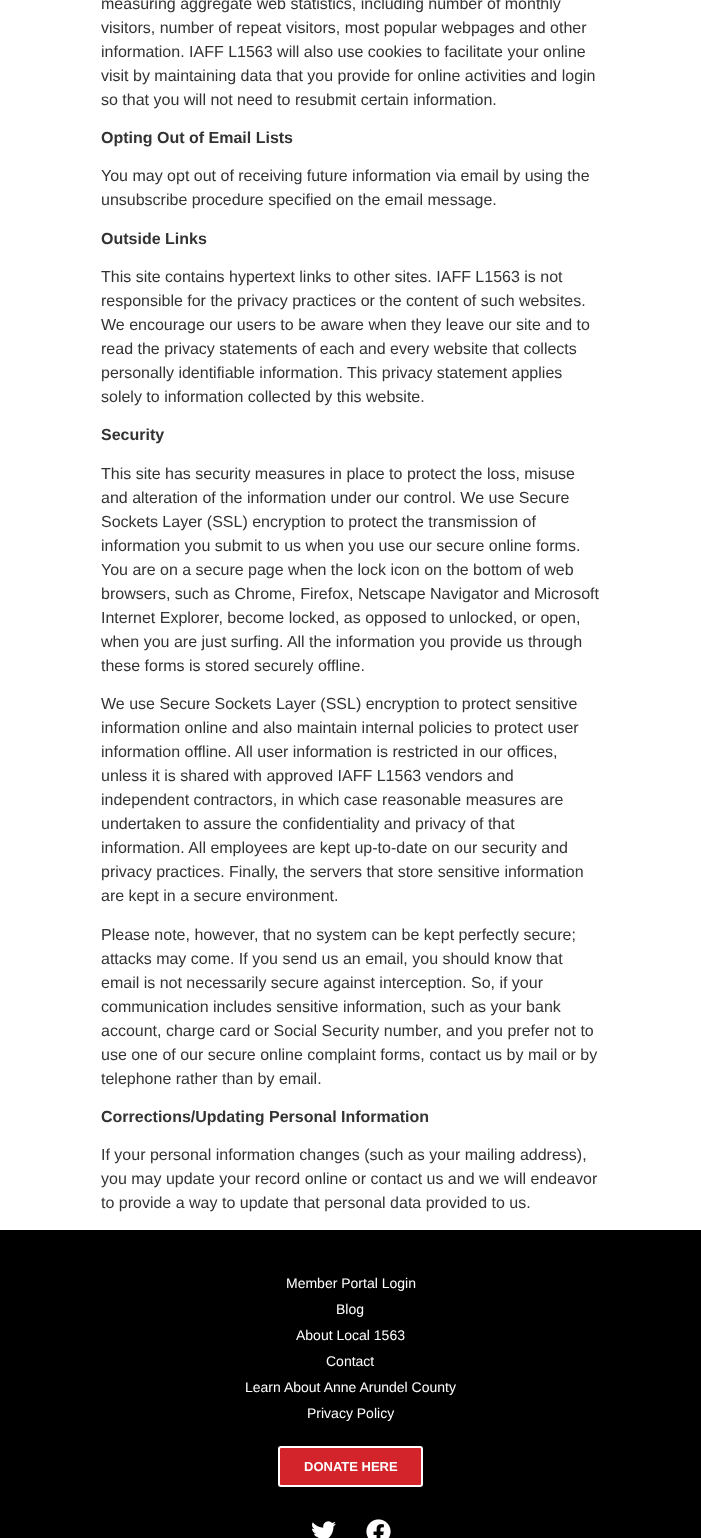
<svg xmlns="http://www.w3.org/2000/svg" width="701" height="1538">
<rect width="100%" height="100%" fill="#fff"/>
<text x="101" y="9" style="font-family:Liberation Sans;font-size:16px;fill:#333">measuring aggregate web statistics, including number of monthly</text>
<text x="101" y="33" style="font-family:Liberation Sans;font-size:16px;fill:#333">visitors, number of repeat visitors, most popular webpages and other</text>
<text x="101" y="57" style="font-family:Liberation Sans;font-size:16px;fill:#333">information. IAFF L1563 will also use cookies to facilitate your online</text>
<text x="101" y="81" style="font-family:Liberation Sans;font-size:16px;fill:#333">visit by maintaining data that you provide for online activities and login</text>
<text x="101" y="105" style="font-family:Liberation Sans;font-size:16px;fill:#333">so that you will not need to resubmit certain information.</text>
<text x="101" y="143" style="font-family:Liberation Sans;font-size:16px;font-weight:bold;fill:#333">Opting Out of Email Lists</text>
<text x="101" y="181" style="font-family:Liberation Sans;font-size:16px;fill:#333">You may opt out of receiving future information via email by using the</text>
<text x="101" y="205" style="font-family:Liberation Sans;font-size:16px;fill:#333">unsubscribe procedure specified on the email message.</text>
<text x="101" y="244" style="font-family:Liberation Sans;font-size:16px;font-weight:bold;fill:#333">Outside Links</text>
<text x="101" y="282" style="font-family:Liberation Sans;font-size:16px;fill:#333">This site contains hypertext links to other sites. IAFF L1563 is not</text>
<text x="101" y="306" style="font-family:Liberation Sans;font-size:16px;fill:#333">responsible for the privacy practices or the content of such websites.</text>
<text x="101" y="330" style="font-family:Liberation Sans;font-size:16px;fill:#333">We encourage our users to be aware when they leave our site and to</text>
<text x="101" y="354" style="font-family:Liberation Sans;font-size:16px;fill:#333">read the privacy statements of each and every website that collects</text>
<text x="101" y="378" style="font-family:Liberation Sans;font-size:16px;fill:#333">personally identifiable information. This privacy statement applies</text>
<text x="101" y="402" style="font-family:Liberation Sans;font-size:16px;fill:#333">solely to information collected by this website.</text>
<text x="101" y="440" style="font-family:Liberation Sans;font-size:16px;font-weight:bold;fill:#333">Security</text>
<text x="101" y="479" style="font-family:Liberation Sans;font-size:16px;fill:#333">This site has security measures in place to protect the loss, misuse</text>
<text x="101" y="503" style="font-family:Liberation Sans;font-size:16px;fill:#333">and alteration of the information under our control. We use Secure</text>
<text x="101" y="527" style="font-family:Liberation Sans;font-size:16px;fill:#333">Sockets Layer (SSL) encryption to protect the transmission of</text>
<text x="101" y="551" style="font-family:Liberation Sans;font-size:16px;fill:#333">information you submit to us when you use our secure online forms.</text>
<text x="101" y="575" style="font-family:Liberation Sans;font-size:16px;fill:#333">You are on a secure page when the lock icon on the bottom of web</text>
<text x="101" y="599" style="font-family:Liberation Sans;font-size:16px;fill:#333">browsers, such as Chrome, Firefox, Netscape Navigator and Microsoft</text>
<text x="101" y="623" style="font-family:Liberation Sans;font-size:16px;fill:#333">Internet Explorer, become locked, as opposed to unlocked, or open,</text>
<text x="101" y="647" style="font-family:Liberation Sans;font-size:16px;fill:#333">when you are just surfing. All the information you provide us through</text>
<text x="101" y="671" style="font-family:Liberation Sans;font-size:16px;fill:#333">these forms is stored securely offline.</text>
<text x="101" y="709" style="font-family:Liberation Sans;font-size:16px;fill:#333">We use Secure Sockets Layer (SSL) encryption to protect sensitive</text>
<text x="101" y="733" style="font-family:Liberation Sans;font-size:16px;fill:#333">information online and also maintain internal policies to protect user</text>
<text x="101" y="757" style="font-family:Liberation Sans;font-size:16px;fill:#333">information offline. All user information is restricted in our offices,</text>
<text x="101" y="781" style="font-family:Liberation Sans;font-size:16px;fill:#333">unless it is shared with approved IAFF L1563 vendors and</text>
<text x="101" y="805" style="font-family:Liberation Sans;font-size:16px;fill:#333">independent contractors, in which case reasonable measures are</text>
<text x="101" y="829" style="font-family:Liberation Sans;font-size:16px;fill:#333">undertaken to assure the confidentiality and privacy of that</text>
<text x="101" y="853" style="font-family:Liberation Sans;font-size:16px;fill:#333">information. All employees are kept up-to-date on our security and</text>
<text x="101" y="877" style="font-family:Liberation Sans;font-size:16px;fill:#333">privacy practices. Finally, the servers that store sensitive information</text>
<text x="101" y="901" style="font-family:Liberation Sans;font-size:16px;fill:#333">are kept in a secure environment.</text>
<text x="101" y="940" style="font-family:Liberation Sans;font-size:16px;fill:#333">Please note, however, that no system can be kept perfectly secure;</text>
<text x="101" y="964" style="font-family:Liberation Sans;font-size:16px;fill:#333">attacks may come. If you send us an email, you should know that</text>
<text x="101" y="988" style="font-family:Liberation Sans;font-size:16px;fill:#333">email is not necessarily secure against interception. So, if your</text>
<text x="101" y="1012" style="font-family:Liberation Sans;font-size:16px;fill:#333">communication includes sensitive information, such as your bank</text>
<text x="101" y="1036" style="font-family:Liberation Sans;font-size:16px;fill:#333">account, charge card or Social Security number, and you prefer not to</text>
<text x="101" y="1060" style="font-family:Liberation Sans;font-size:16px;fill:#333">use one of our secure online complaint forms, contact us by mail or by</text>
<text x="101" y="1084" style="font-family:Liberation Sans;font-size:16px;fill:#333">telephone rather than by email.</text>
<text x="101" y="1122" style="font-family:Liberation Sans;font-size:16px;font-weight:bold;fill:#333">Corrections/Updating Personal Information</text>
<text x="101" y="1160" style="font-family:Liberation Sans;font-size:16px;fill:#333">If your personal information changes (such as your mailing address),</text>
<text x="101" y="1184" style="font-family:Liberation Sans;font-size:16px;fill:#333">you may update your record online or contact us and we will endeavor</text>
<text x="101" y="1208" style="font-family:Liberation Sans;font-size:16px;fill:#333">to provide a way to update that personal data provided to us.</text>
<rect y="1230" width="701" height="308" fill="#000"/>
<text x="286" y="1288" style="font-family:Liberation Sans;font-size:14px;fill:#fff">Member Portal Login</text>
<text x="336" y="1314" style="font-family:Liberation Sans;font-size:14px;fill:#fff">Blog</text>
<text x="296" y="1340" style="font-family:Liberation Sans;font-size:14px;fill:#fff">About Local 1563</text>
<text x="326" y="1366" style="font-family:Liberation Sans;font-size:14px;fill:#fff">Contact</text>
<text x="245" y="1392" style="font-family:Liberation Sans;font-size:14px;fill:#fff">Learn About Anne Arundel County</text>
<text x="307" y="1418" style="font-family:Liberation Sans;font-size:14px;fill:#fff">Privacy Policy</text>
<rect x="279" y="1447" width="143" height="39" rx="2" fill="#d2242a" stroke="#fff" stroke-width="2"/>
<text x="304" y="1471" style="font-family:Liberation Sans;font-size:13px;font-weight:bold;fill:#fff">DONATE HERE</text>
<image x="312" y="1521" width="24" height="17" href="media/1.png"/>
<image x="366" y="1519" width="25" height="19" href="media/2.png"/>
</svg>
